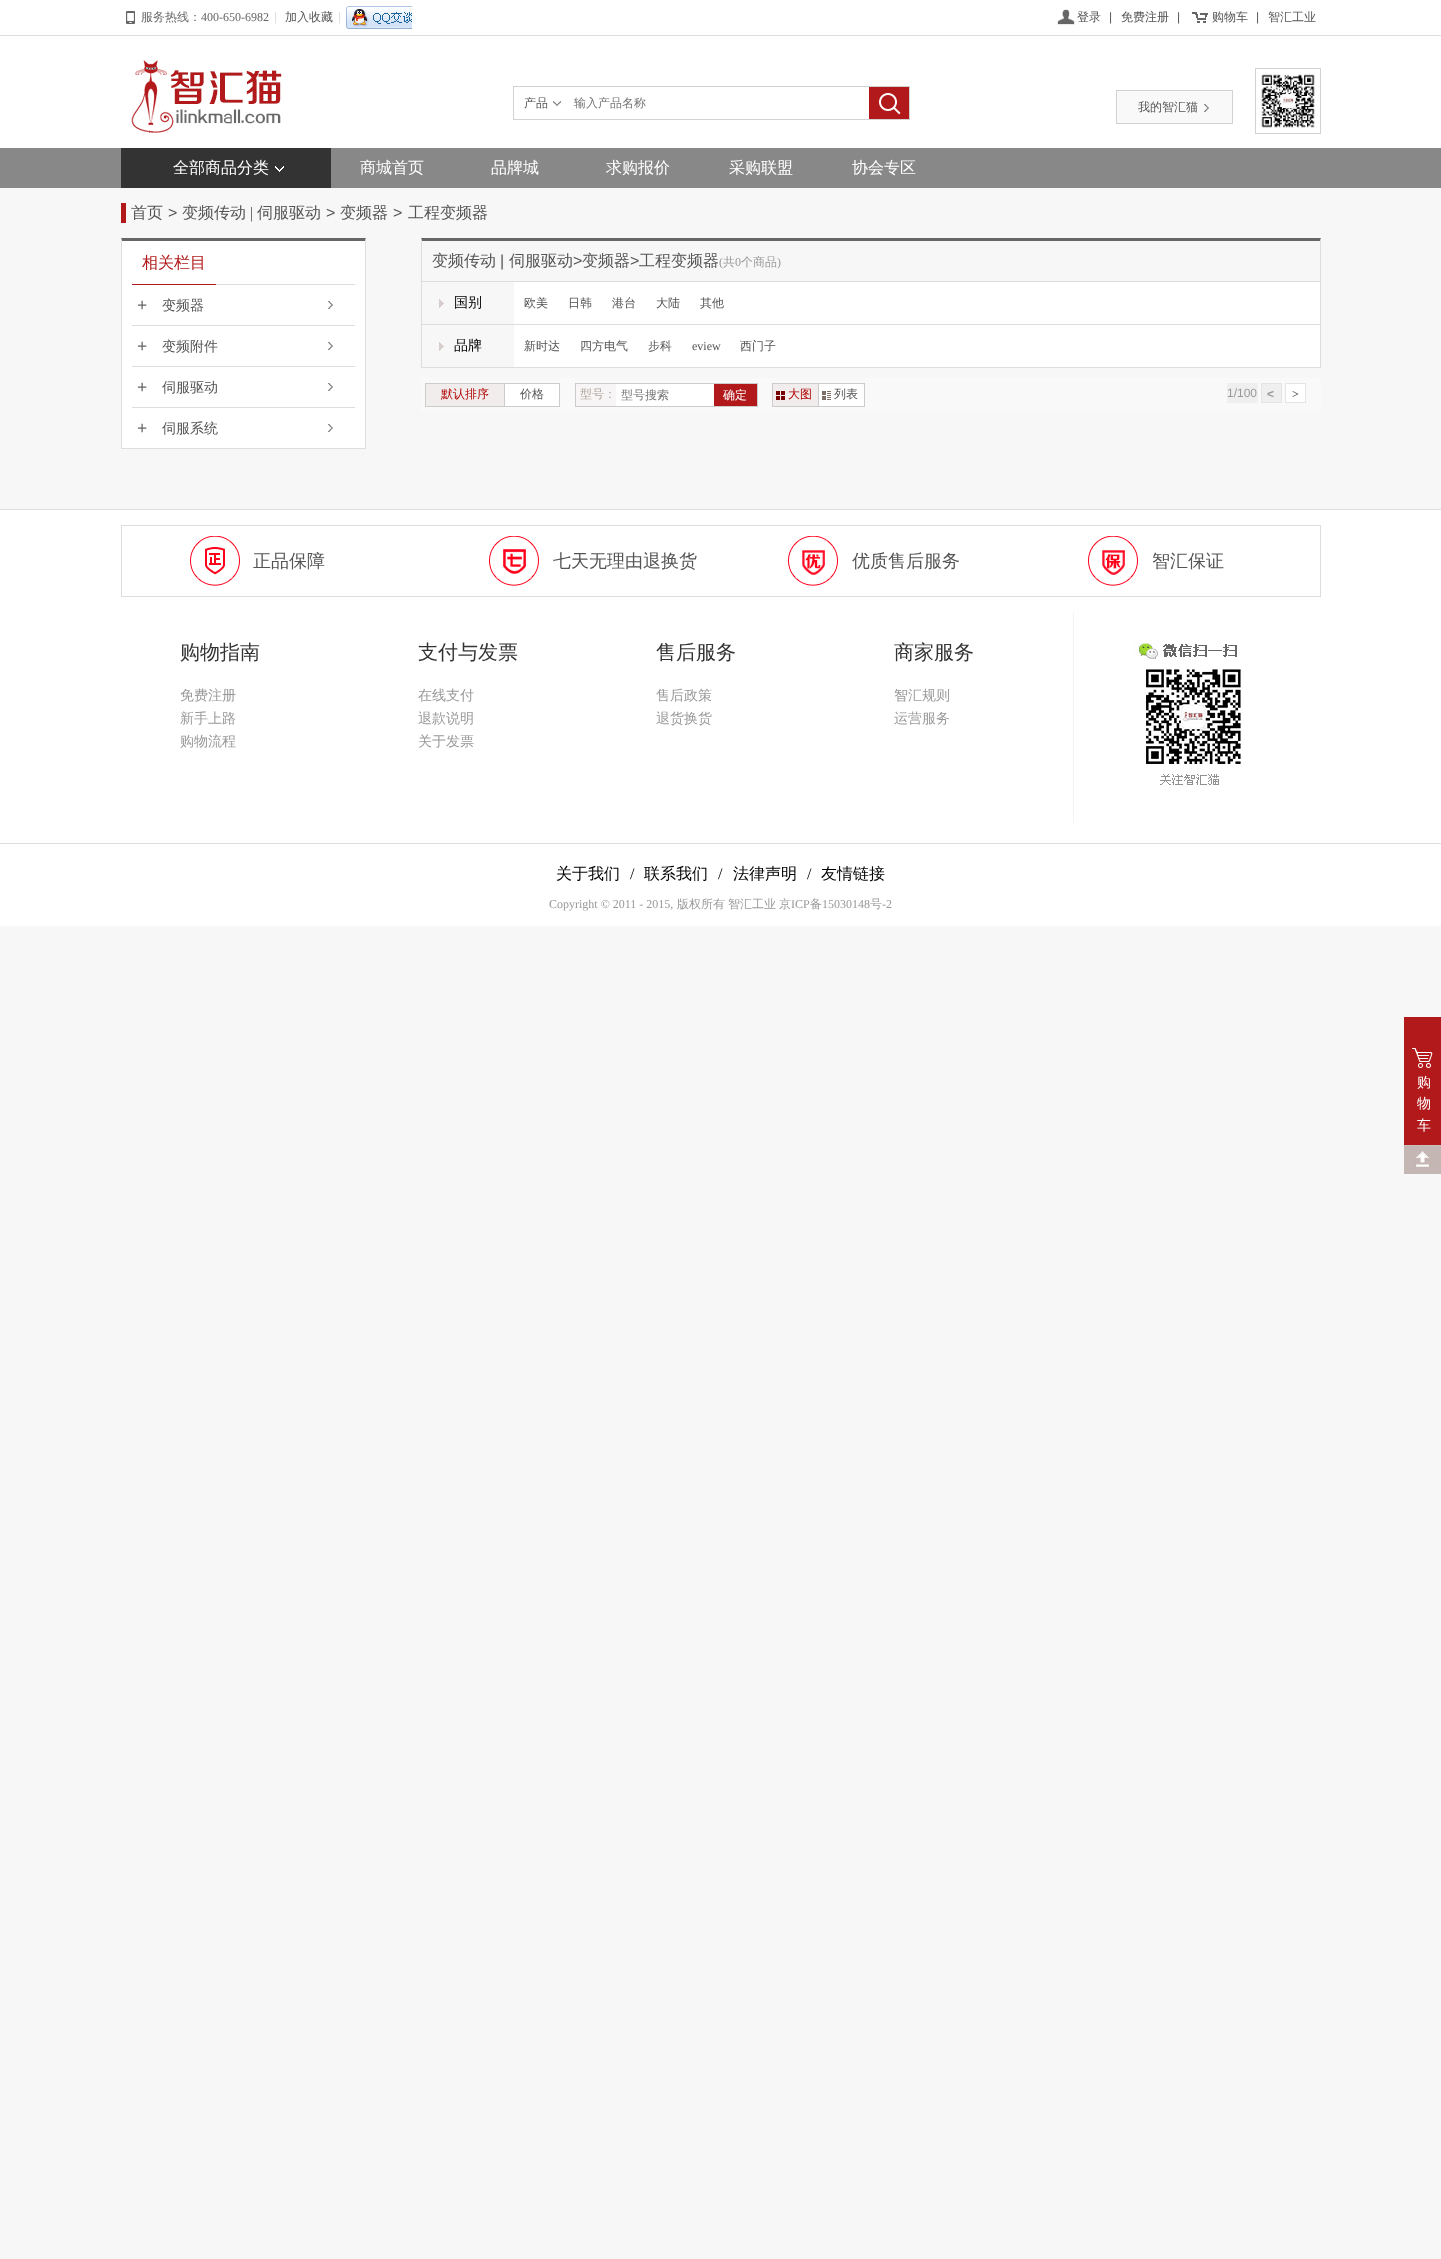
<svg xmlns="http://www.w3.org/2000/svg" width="1441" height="2259">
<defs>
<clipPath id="clip1"><rect x="621" y="387" width="88" height="17"/></clipPath>
</defs>
<rect width="100%" height="100%" fill="#f7f7f7"/>
<rect width="1441" height="35" fill="#fff"/>
<rect y="35" width="1441" height="1" fill="#ddd"/>
<image x="126" y="11" width="9" height="13" href="media/1.png"/>
<text x="141" y="21" style="font-family:WenQuanYi Zen Hei;font-size:12px;font-weight:500;fill:#666">服务热线：</text>
<text x="201" y="21" style="font-family:Liberation Serif;font-size:12px;fill:#666">400-650-6982</text>
<text x="274" y="21" style="font-family:Liberation Sans;font-size:12px;fill:#ddd">|</text>
<text x="285" y="21" style="font-family:WenQuanYi Zen Hei;font-size:12px;font-weight:500;fill:#545454">加入收藏</text>
<text x="338" y="21" style="font-family:Liberation Sans;font-size:12px;fill:#ddd">|</text>
<image x="346" y="6" width="66" height="23" href="media/2.png"/>
<image x="1057" y="9" width="18" height="16" href="media/3.png"/>
<text x="1077" y="21" style="font-family:WenQuanYi Zen Hei;font-size:12px;font-weight:500;fill:#545454">登录</text>
<text x="1109" y="21" style="font-family:Liberation Sans;font-size:12px;fill:#545454">|</text>
<text x="1121" y="21" style="font-family:WenQuanYi Zen Hei;font-size:12px;font-weight:500;fill:#545454">免费注册</text>
<text x="1177" y="21" style="font-family:Liberation Sans;font-size:12px;fill:#545454">|</text>
<image x="1192" y="12" width="16" height="11" href="media/4.png"/>
<text x="1212" y="21" style="font-family:WenQuanYi Zen Hei;font-size:12px;font-weight:500;fill:#545454">购物车</text>
<text x="1256" y="21" style="font-family:Liberation Sans;font-size:12px;fill:#545454">|</text>
<text x="1268" y="21" style="font-family:WenQuanYi Zen Hei;font-size:12px;font-weight:500;fill:#545454">智汇工业</text>
<rect y="36" width="1441" height="112" fill="#fff"/>
<image x="131" y="60" width="151" height="73" href="media/5.png"/>
<rect x="513.5" y="86.5" width="396" height="33" fill="none" stroke="#d2d2d2"/>
<image x="553" y="101" width="8" height="5" href="media/6.png"/>
<text x="524" y="107" style="font-family:WenQuanYi Zen Hei;font-size:12px;font-weight:500;fill:#545454">产品</text>
<text x="574" y="107" style="font-family:WenQuanYi Zen Hei;font-size:12px;font-weight:500;fill:#757575">输入产品名称</text>
<rect x="869" y="87" width="40" height="32" fill="#b2191b"/>
<image x="879" y="93" width="22" height="22" href="media/7.png"/>
<rect x="1116.5" y="90.5" width="116" height="33" fill="#f9f9f9" stroke="#d2d2d2"/>
<text x="1138" y="111" style="font-family:WenQuanYi Zen Hei;font-size:12px;font-weight:500;fill:#545454">我的智汇猫</text>
<image x="1204" y="104" width="5" height="8" href="media/8.png"/>
<rect x="1255.5" y="68.5" width="65" height="65" fill="none" stroke="#d2d2d2"/>
<image x="1261" y="74" width="54" height="54" href="media/9.png"/>
<rect y="148" width="1441" height="40" fill="#888"/>
<rect x="121" y="148" width="210" height="40" fill="#333"/>
<image x="275" y="166" width="9" height="6" href="media/10.png"/>
<text x="173" y="173" style="font-family:WenQuanYi Zen Hei;font-size:16px;font-weight:500;fill:#fff">全部商品分类</text>
<text x="360" y="173" style="font-family:WenQuanYi Zen Hei;font-size:16px;font-weight:500;fill:#fff">商城首页</text>
<text x="491" y="173" style="font-family:WenQuanYi Zen Hei;font-size:16px;font-weight:500;fill:#fff">品牌城</text>
<text x="606" y="173" style="font-family:WenQuanYi Zen Hei;font-size:16px;font-weight:500;fill:#fff">求购报价</text>
<text x="729" y="173" style="font-family:WenQuanYi Zen Hei;font-size:16px;font-weight:500;fill:#fff">采购联盟</text>
<text x="852" y="173" style="font-family:WenQuanYi Zen Hei;font-size:16px;font-weight:500;fill:#fff">协会专区</text>
<rect x="121" y="203" width="5" height="20" fill="#b1191a"/>
<text x="131" y="218" style="font-family:WenQuanYi Zen Hei;font-size:16px;font-weight:500;fill:#545454">首页</text>
<text x="168" y="218" style="font-family:Liberation Sans;font-size:16px;fill:#545454">&gt;</text>
<text x="182" y="218" style="font-family:WenQuanYi Zen Hei;font-size:16px;font-weight:500;fill:#545454">变频传动</text>
<text x="250" y="218" style="font-family:Liberation Serif;font-size:16px;fill:#545454">|</text>
<text x="257" y="218" style="font-family:WenQuanYi Zen Hei;font-size:16px;font-weight:500;fill:#545454">伺服驱动</text>
<text x="326" y="218" style="font-family:Liberation Sans;font-size:16px;fill:#545454">&gt;</text>
<text x="340" y="218" style="font-family:WenQuanYi Zen Hei;font-size:16px;font-weight:500;fill:#545454">变频器</text>
<text x="393" y="218" style="font-family:Liberation Sans;font-size:16px;fill:#545454">&gt;</text>
<text x="408" y="218" style="font-family:WenQuanYi Zen Hei;font-size:16px;font-weight:500;fill:#545454">工程变频器</text>
<rect x="122" y="241" width="243" height="207" fill="#fff"/>
<path d="M121 238h245l-1 3h-243z" fill="#666"/>
<path d="M366 238v211l-1-1v-207z" fill="#ddd"/>
<rect x="121" y="448" width="245" height="1" fill="#ddd"/>
<path d="M121 449v-211l1 3v207z" fill="#ddd"/>
<rect x="216" y="284" width="139" height="1" fill="#ddd"/>
<rect x="132" y="284" width="84" height="1" fill="#b1191a"/>
<text x="142" y="268" style="font-family:WenQuanYi Zen Hei;font-size:16px;font-weight:500;fill:#b1191a">相关栏目</text>
<rect x="132" y="325" width="223" height="1" fill="#ddd"/>
<text x="137" y="311" style="font-family:Liberation Serif;font-size:18px;font-weight:bold;fill:#666">+</text>
<image x="328" y="301" width="5" height="8" href="media/11.png"/>
<text x="162" y="310" style="font-family:WenQuanYi Zen Hei;font-size:14px;font-weight:500;fill:#545454">变频器</text>
<rect x="132" y="366" width="223" height="1" fill="#ddd"/>
<text x="137" y="352" style="font-family:Liberation Serif;font-size:18px;font-weight:bold;fill:#666">+</text>
<image x="328" y="342" width="5" height="8" href="media/11.png"/>
<text x="162" y="351" style="font-family:WenQuanYi Zen Hei;font-size:14px;font-weight:500;fill:#545454">变频附件</text>
<rect x="132" y="407" width="223" height="1" fill="#ddd"/>
<text x="137" y="393" style="font-family:Liberation Serif;font-size:18px;font-weight:bold;fill:#666">+</text>
<image x="328" y="383" width="5" height="8" href="media/11.png"/>
<text x="162" y="392" style="font-family:WenQuanYi Zen Hei;font-size:14px;font-weight:500;fill:#545454">伺服驱动</text>
<text x="137" y="434" style="font-family:Liberation Serif;font-size:18px;font-weight:bold;fill:#666">+</text>
<image x="328" y="424" width="5" height="8" href="media/11.png"/>
<text x="162" y="433" style="font-family:WenQuanYi Zen Hei;font-size:14px;font-weight:500;fill:#545454">伺服系统</text>
<rect x="514" y="282" width="806" height="85" fill="#fff"/>
<path d="M421 238h900l-1 3h-898z" fill="#666"/>
<path d="M1321 238v130l-1-1v-126z" fill="#ddd"/>
<rect x="421" y="367" width="900" height="1" fill="#ddd"/>
<path d="M421 368v-130l1 3v126z" fill="#ddd"/>
<text x="432" y="266" style="font-family:WenQuanYi Zen Hei;font-size:16px;font-weight:500;fill:#545454">变频传动</text>
<text x="500" y="266" style="font-family:Liberation Sans;font-size:16px;fill:#545454">|</text>
<text x="509" y="266" style="font-family:WenQuanYi Zen Hei;font-size:16px;font-weight:500;fill:#545454">伺服驱动</text>
<text x="573" y="266" style="font-family:Liberation Sans;font-size:16px;fill:#545454">&gt;</text>
<text x="582" y="266" style="font-family:WenQuanYi Zen Hei;font-size:16px;font-weight:500;fill:#545454">变频器</text>
<text x="630" y="266" style="font-family:Liberation Sans;font-size:16px;fill:#545454">&gt;</text>
<text x="639" y="266" style="font-family:WenQuanYi Zen Hei;font-size:16px;font-weight:500;fill:#545454">工程变频器</text>
<text x="719" y="266" style="font-family:Liberation Serif;font-size:12px;fill:#999">(</text>
<text x="723" y="266" style="font-family:WenQuanYi Zen Hei;font-size:12px;font-weight:500;fill:#999">共</text>
<text x="735" y="266" style="font-family:Liberation Serif;font-size:12px;fill:#999">0</text>
<text x="741" y="266" style="font-family:WenQuanYi Zen Hei;font-size:12px;font-weight:500;fill:#999">个商品</text>
<text x="777" y="266" style="font-family:Liberation Serif;font-size:12px;fill:#999">)</text>
<rect x="422" y="281" width="898" height="1" fill="#ddd"/>
<image x="439" y="299" width="5" height="9" href="media/12.png"/>
<text x="454" y="307" style="font-family:WenQuanYi Zen Hei;font-size:14px;font-weight:500;fill:#000">国别</text>
<text x="524" y="307" style="font-family:WenQuanYi Zen Hei;font-size:12px;font-weight:500;fill:#545454">欧美</text>
<text x="568" y="307" style="font-family:WenQuanYi Zen Hei;font-size:12px;font-weight:500;fill:#545454">日韩</text>
<text x="612" y="307" style="font-family:WenQuanYi Zen Hei;font-size:12px;font-weight:500;fill:#545454">港台</text>
<text x="656" y="307" style="font-family:WenQuanYi Zen Hei;font-size:12px;font-weight:500;fill:#545454">大陆</text>
<text x="700" y="307" style="font-family:WenQuanYi Zen Hei;font-size:12px;font-weight:500;fill:#545454">其他</text>
<rect x="422" y="324" width="898" height="1" fill="#ddd"/>
<image x="439" y="342" width="5" height="9" href="media/12.png"/>
<text x="454" y="350" style="font-family:WenQuanYi Zen Hei;font-size:14px;font-weight:500;fill:#000">品牌</text>
<text x="524" y="350" style="font-family:WenQuanYi Zen Hei;font-size:12px;font-weight:500;fill:#545454">新时达</text>
<text x="580" y="350" style="font-family:WenQuanYi Zen Hei;font-size:12px;font-weight:500;fill:#545454">四方电气</text>
<text x="648" y="350" style="font-family:WenQuanYi Zen Hei;font-size:12px;font-weight:500;fill:#545454">步科</text>
<text x="692" y="350" style="font-family:Liberation Serif;font-size:12px;fill:#545454">eview</text>
<text x="740" y="350" style="font-family:WenQuanYi Zen Hei;font-size:12px;font-weight:500;fill:#545454">西门子</text>
<rect x="421" y="378" width="900" height="34" fill="#faf9f9"/>
<rect x="425.5" y="383.5" width="79" height="23" fill="#f1edec" stroke="#ccc"/>
<text x="441" y="398" style="font-family:WenQuanYi Zen Hei;font-size:12px;font-weight:500;fill:#b10000">默认排序</text>
<rect x="504.5" y="383.5" width="55" height="23" fill="#fff" stroke="#ccc"/>
<text x="520" y="398" style="font-family:WenQuanYi Zen Hei;font-size:12px;font-weight:500;fill:#545454">价格</text>
<rect x="616" y="384" width="98" height="22" fill="#fff"/>
<rect x="575.5" y="383.5" width="182" height="23" fill="none" stroke="#ccc"/>
<rect x="576" y="384" width="40" height="22" fill="#f7f5f5"/>
<text x="580" y="398" style="font-family:WenQuanYi Zen Hei;font-size:12px;font-weight:500;fill:#b0a59f">型号：</text>
<g clip-path="url(#clip1)">
<text x="621" y="399" style="font-family:WenQuanYi Zen Hei;font-size:12px;font-weight:500;fill:#757575">型号搜索</text>
</g>
<rect x="714" y="384" width="43" height="22" fill="#b2191b"/>
<text x="723" y="399" style="font-family:WenQuanYi Zen Hei;font-size:12px;font-weight:500;fill:#fff">确定</text>
<rect x="772.5" y="383.5" width="46" height="23" fill="#f1edec" stroke="#ccc"/>
<image x="776" y="391" width="9" height="9" href="media/13.png"/>
<text x="788" y="398" style="font-family:WenQuanYi Zen Hei;font-size:12px;font-weight:500;fill:#b10000">大图</text>
<rect x="818.5" y="383.5" width="46" height="23" fill="#fff" stroke="#ccc"/>
<image x="822" y="391" width="9" height="9" href="media/14.png"/>
<text x="834" y="398" style="font-family:WenQuanYi Zen Hei;font-size:12px;font-weight:500;fill:#545454">列表</text>
<rect x="1227" y="383" width="31" height="20" fill="#efefef"/>
<text x="1227" y="397" style="font-family:Liberation Sans;font-size:12px;fill:#999">1/100</text>
<rect x="1261.5" y="383.5" width="20" height="19" fill="#efefef" stroke="#e5e5e5"/>
<text x="1267" y="398" style="font-family:Liberation Sans;font-size:12px;font-weight:bold;fill:#999">&lt;</text>
<rect x="1285.5" y="383.5" width="20" height="19" fill="#fff" stroke="#e5e5e5"/>
<text x="1292" y="398" style="font-family:Liberation Serif;font-size:12px;font-weight:bold;fill:#545454">&gt;</text>
<rect y="510" width="1441" height="416" fill="#fff"/>
<rect y="509" width="1441" height="1" fill="#ddd"/>
<rect x="121.5" y="525.5" width="1199" height="71" fill="none" stroke="#ddd"/>
<image x="190" y="536" width="50" height="50" href="media/15.png"/>
<text x="253" y="567" style="font-family:WenQuanYi Zen Hei;font-size:18px;font-weight:500;fill:#545454">正品保障</text>
<image x="489" y="536" width="50" height="50" href="media/16.png"/>
<text x="553" y="567" style="font-family:WenQuanYi Zen Hei;font-size:18px;font-weight:500;fill:#545454">七天无理由退换货</text>
<image x="788" y="536" width="50" height="50" href="media/17.png"/>
<text x="852" y="567" style="font-family:WenQuanYi Zen Hei;font-size:18px;font-weight:500;fill:#545454">优质售后服务</text>
<image x="1088" y="536" width="50" height="50" href="media/18.png"/>
<text x="1152" y="567" style="font-family:WenQuanYi Zen Hei;font-size:18px;font-weight:500;fill:#545454">智汇保证</text>
<text x="180" y="659" style="font-family:WenQuanYi Zen Hei;font-size:20px;font-weight:500;fill:#333">购物指南</text>
<text x="180" y="700" style="font-family:WenQuanYi Zen Hei;font-size:14px;font-weight:500;fill:#999">免费注册</text>
<text x="180" y="723" style="font-family:WenQuanYi Zen Hei;font-size:14px;font-weight:500;fill:#999">新手上路</text>
<text x="180" y="746" style="font-family:WenQuanYi Zen Hei;font-size:14px;font-weight:500;fill:#999">购物流程</text>
<text x="418" y="659" style="font-family:WenQuanYi Zen Hei;font-size:20px;font-weight:500;fill:#333">支付与发票</text>
<text x="418" y="700" style="font-family:WenQuanYi Zen Hei;font-size:14px;font-weight:500;fill:#999">在线支付</text>
<text x="418" y="723" style="font-family:WenQuanYi Zen Hei;font-size:14px;font-weight:500;fill:#999">退款说明</text>
<text x="418" y="746" style="font-family:WenQuanYi Zen Hei;font-size:14px;font-weight:500;fill:#999">关于发票</text>
<text x="656" y="659" style="font-family:WenQuanYi Zen Hei;font-size:20px;font-weight:500;fill:#333">售后服务</text>
<text x="656" y="700" style="font-family:WenQuanYi Zen Hei;font-size:14px;font-weight:500;fill:#999">售后政策</text>
<text x="656" y="723" style="font-family:WenQuanYi Zen Hei;font-size:14px;font-weight:500;fill:#999">退货换货</text>
<text x="894" y="659" style="font-family:WenQuanYi Zen Hei;font-size:20px;font-weight:500;fill:#333">商家服务</text>
<text x="894" y="700" style="font-family:WenQuanYi Zen Hei;font-size:14px;font-weight:500;fill:#999">智汇规则</text>
<text x="894" y="723" style="font-family:WenQuanYi Zen Hei;font-size:14px;font-weight:500;fill:#999">运营服务</text>
<rect x="1073" y="612" width="1" height="211" fill="#f3f3f3"/>
<image x="1133" y="642" width="108" height="143" href="media/19.png"/>
<rect y="843" width="1441" height="1" fill="#ddd"/>
<text x="556" y="879" style="font-family:WenQuanYi Zen Hei;font-size:16px;font-weight:500;fill:#000">关于我们</text>
<text x="630" y="879" style="font-family:Liberation Serif;font-size:16px;fill:#000">/</text>
<text x="644" y="879" style="font-family:WenQuanYi Zen Hei;font-size:16px;font-weight:500;fill:#000">联系我们</text>
<text x="718" y="879" style="font-family:Liberation Serif;font-size:16px;fill:#000">/</text>
<text x="733" y="879" style="font-family:WenQuanYi Zen Hei;font-size:16px;font-weight:500;fill:#000">法律声明</text>
<text x="807" y="879" style="font-family:Liberation Serif;font-size:16px;fill:#000">/</text>
<text x="821" y="879" style="font-family:WenQuanYi Zen Hei;font-size:16px;font-weight:500;fill:#000">友情链接</text>
<text x="549" y="908" style="font-family:Liberation Serif;font-size:12px;fill:#999">Copyright © 2011 - 2015,</text>
<text x="677" y="908" style="font-family:WenQuanYi Zen Hei;font-size:12px;font-weight:500;fill:#999">版权所有</text>
<text x="728" y="908" style="font-family:WenQuanYi Zen Hei;font-size:12px;font-weight:500;fill:#999">智汇工业</text>
<text x="779" y="908" style="font-family:WenQuanYi Zen Hei;font-size:12px;font-weight:500;fill:#999">京</text>
<text x="791" y="908" style="font-family:Liberation Serif;font-size:12px;fill:#999">ICP</text>
<text x="810" y="908" style="font-family:WenQuanYi Zen Hei;font-size:12px;font-weight:500;fill:#999">备</text>
<text x="822" y="908" style="font-family:Liberation Serif;font-size:12px;fill:#999">15030148</text>
<text x="870" y="908" style="font-family:WenQuanYi Zen Hei;font-size:12px;font-weight:500;fill:#999">号</text>
<text x="882" y="908" style="font-family:Liberation Serif;font-size:12px;fill:#999">-2</text>
<rect x="1404" y="1017" width="37" height="128" fill="#b2191b"/>
<image x="1412" y="1048" width="21" height="20" href="media/20.png"/>
<text x="1417" y="1087" style="font-family:WenQuanYi Zen Hei;font-size:14px;font-weight:500;fill:#fff">购</text>
<text x="1417" y="1108" style="font-family:WenQuanYi Zen Hei;font-size:14px;font-weight:500;fill:#fff">物</text>
<text x="1417" y="1130" style="font-family:WenQuanYi Zen Hei;font-size:14px;font-weight:500;fill:#fff">车</text>
<image x="1404" y="1145" width="37" height="29" href="media/21.png"/>
</svg>
